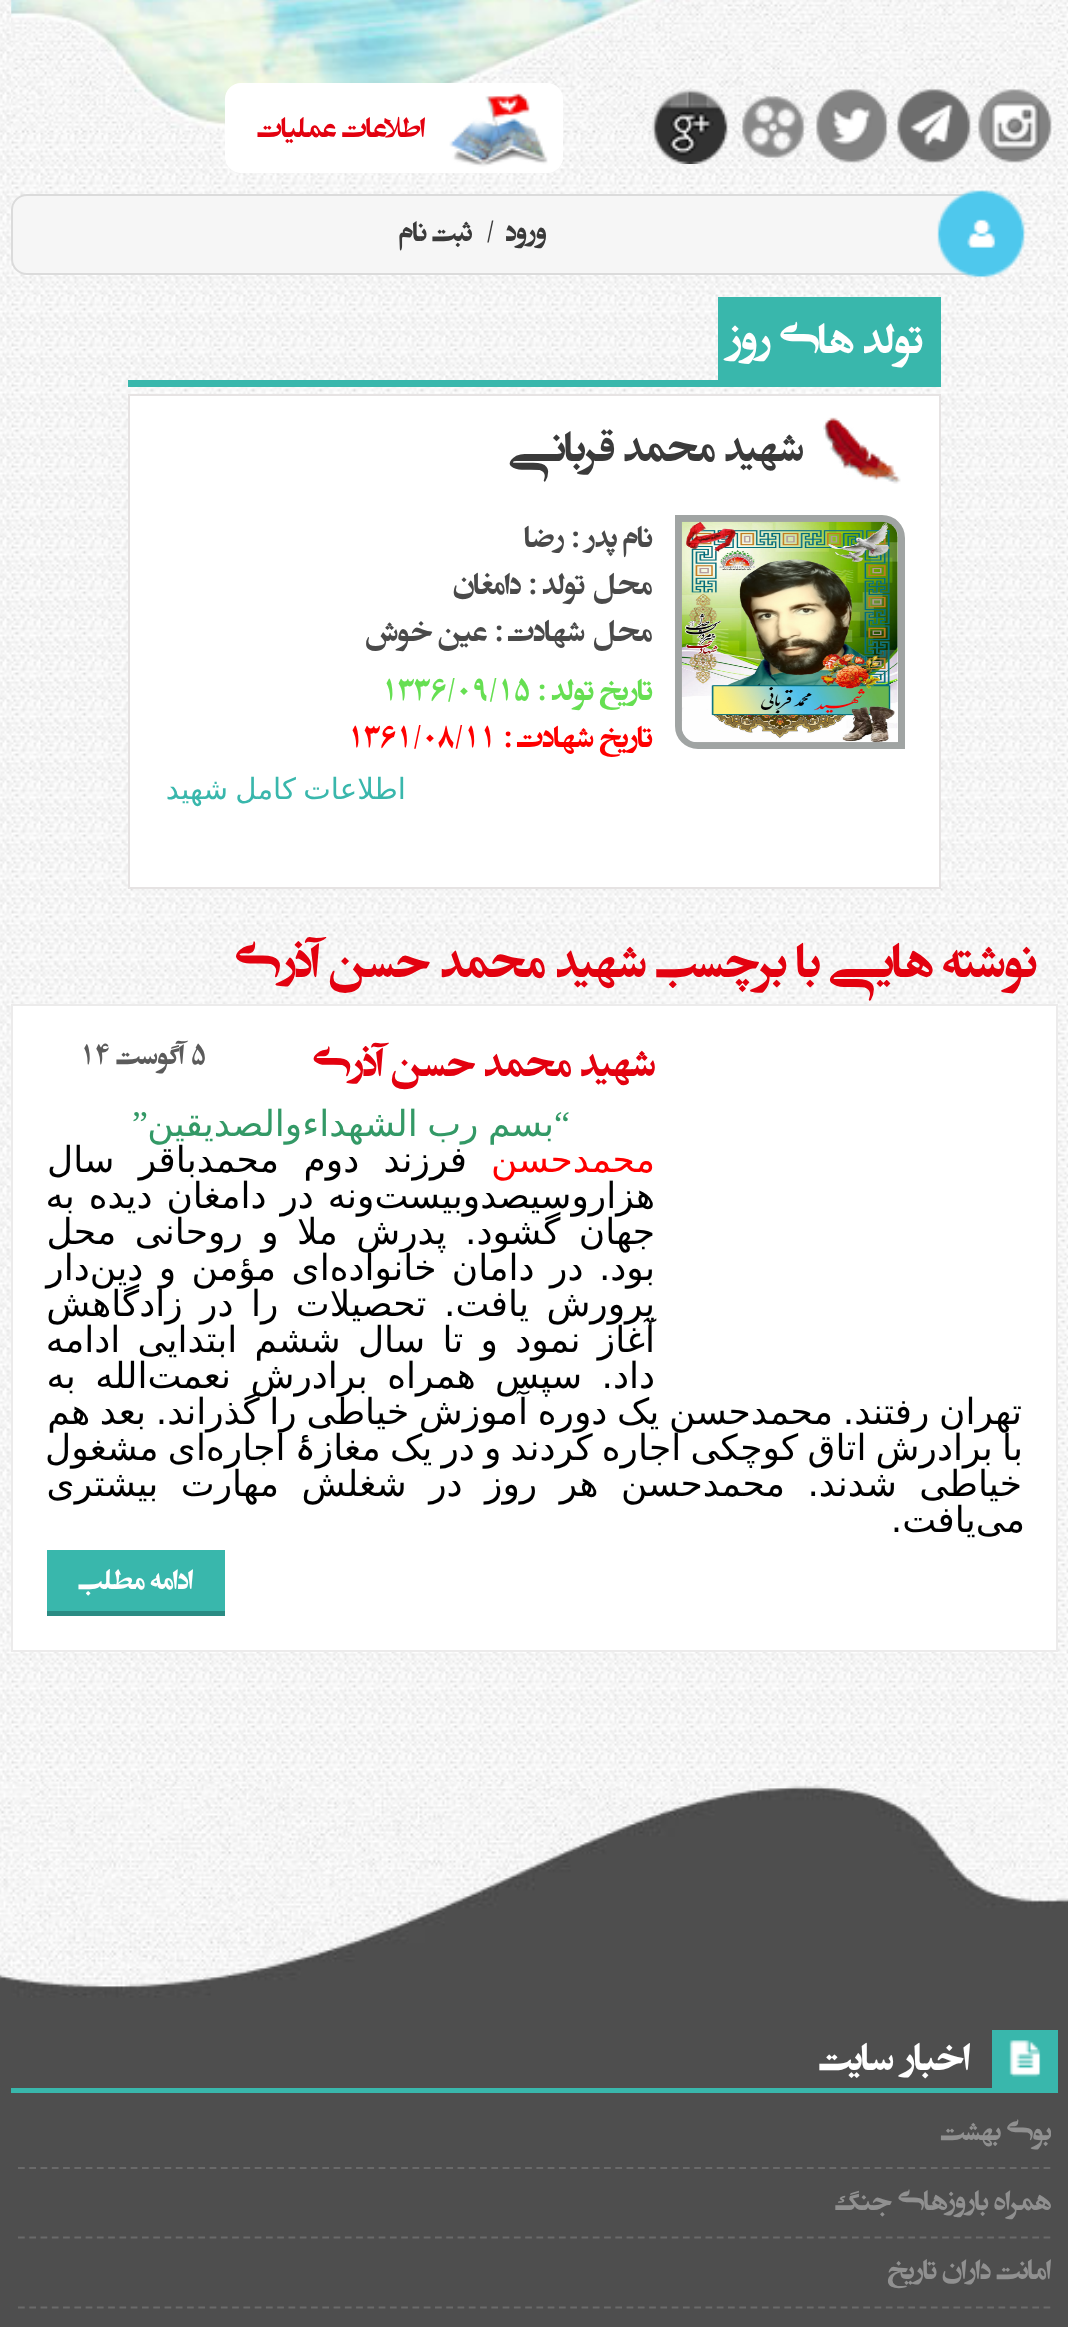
<svg xmlns="http://www.w3.org/2000/svg" width="1068" height="2327">
<defs>
<clipPath id="clip1"><rect x="18" y="2099" width="1033" height="68"/></clipPath>
<clipPath id="clip2"><rect x="18" y="2239" width="1033" height="67"/></clipPath>
</defs>
<rect width="100%" height="100%" fill="#fff"/>
<image x="0" y="0" width="1068" height="1782" href="media/1.png"/>
<image x="11" y="0" width="1047" height="133" href="media/2.png"/>
<image x="978" y="89" width="74" height="74" href="media/3.png"/>
<image x="897" y="89" width="74" height="74" href="media/4.png"/>
<image x="816" y="89" width="72" height="74" href="media/5.png"/>
<image x="737" y="92" width="71" height="70" href="media/6.png"/>
<image x="652" y="89" width="76" height="75" href="media/7.png"/>
<rect x="226" y="84" width="336" height="88" rx="15" fill="#fff" stroke="#fff" stroke-width="2"/>
<image x="449" y="93" width="99" height="74" href="media/8.png"/>
<text x="425" y="137" style="font-family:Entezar;font-size:31.5px;font-weight:bold;direction:rtl;fill:#e3010f">اطلاعات عملیات</text>
<rect x="12" y="195" width="970" height="79" rx="15" fill="#f6f6f6" stroke="#dbdbdb" stroke-width="2"/>
<image x="937" y="190" width="88" height="88" href="media/9.png"/>
<text x="546" y="241" style="font-family:Entezar;font-size:31.5px;font-weight:bold;direction:rtl;fill:#3a3a3a">ورود</text>
<text x="486" y="241" style="font-family:Entezar;font-size:31.5px;font-weight:bold;fill:#3a3a3a">/</text>
<text x="472" y="241" style="font-family:Entezar;font-size:31.5px;font-weight:bold;direction:rtl;fill:#3a3a3a">ثبت نام</text>
<rect x="128" y="380" width="813" height="7" fill="#39b7ac"/>
<rect x="718" y="297" width="223" height="83" fill="#39b7ac"/>
<text x="922" y="353" style="font-family:Entezar;font-size:47.25px;font-weight:bold;direction:rtl;fill:#fff">تولد های روز</text>
<rect x="129" y="395" width="811" height="493" fill="#fff" stroke="#e6e3e3" stroke-width="2"/>
<image x="823" y="417" width="78" height="67" href="media/10.png"/>
<text x="803" y="461" style="font-family:Entezar;font-size:47.25px;font-weight:bold;direction:rtl;fill:#3a3a3a">شهید محمد قربانی</text>
<path d="M678.5 518.5h203.5c11 0 19.5 8.5 19.5 19.5v207.5h-203.5c-11 0-19.5-8.5-19.5-19.5z" fill="none" stroke="#a0a4a3" stroke-width="7"/>
<image x="681" y="521" width="217" height="222" href="media/11.png"/>
<text x="652" y="547" style="font-family:Entezar;font-size:33.75px;font-weight:bold;direction:rtl;fill:#4a4a4a">نام پدر :</text>
<text x="564" y="547" style="font-family:Entezar;font-size:33.75px;font-weight:bold;direction:rtl;fill:#4a4a4a">رضا</text>
<text x="652" y="594" style="font-family:Entezar;font-size:33.75px;font-weight:bold;direction:rtl;fill:#4a4a4a">محل تولد :</text>
<text x="521" y="594" style="font-family:Entezar;font-size:33.75px;font-weight:bold;direction:rtl;fill:#4a4a4a">دامغان</text>
<text x="652" y="641" style="font-family:Entezar;font-size:33.75px;font-weight:bold;direction:rtl;fill:#4a4a4a">محل شهادت :</text>
<text x="487" y="641" style="font-family:Entezar;font-size:33.75px;font-weight:bold;direction:rtl;fill:#4a4a4a">عین خوش</text>
<text x="652" y="700" style="font-family:Entezar;font-size:33.75px;font-weight:bold;direction:rtl;fill:#66df52">تاریخ تولد :</text>
<text x="382" y="700" style="font-family:Entezar;font-size:33.75px;font-weight:bold;fill:#66df52">1336/09/15</text>
<text x="652" y="747" style="font-family:Entezar;font-size:33.75px;font-weight:bold;direction:rtl;fill:#f00">تاریخ شهادت :</text>
<text x="348" y="747" style="font-family:Entezar;font-size:33.75px;font-weight:bold;fill:#f00">1361/08/11</text>
<text x="406" y="799" word-spacing="-2" style="font-family:DejaVu Sans;font-size:29.25px;direction:rtl;fill:#39b7ac">اطلاعات کامل شهید</text>
<text x="1036" y="977" style="font-family:Entezar;font-size:54px;font-weight:bold;direction:rtl;fill:#e3010f">نوشته هایی با برچسب شهيد محمد حسن آذري</text>
<rect x="12" y="1005" width="1045" height="646" fill="#fff" stroke="#ecebeb" stroke-width="2"/>
<text x="655" y="1076" style="font-family:Entezar;font-size:45px;font-weight:bold;direction:rtl;fill:#e3010f">شهید محمد حسن آذری</text>
<text x="191" y="1064" style="font-family:Entezar;font-size:31.5px;font-weight:bold;fill:#5b5b5b">5</text>
<text x="184" y="1064" style="font-family:Entezar;font-size:31.5px;font-weight:bold;direction:rtl;fill:#5b5b5b">آگوست</text>
<text x="80" y="1064" style="font-family:Entezar;font-size:31.5px;font-weight:bold;fill:#5b5b5b">14</text>
<text x="554" y="1136" word-spacing="-2" style="font-family:DejaVu Sans;font-size:36px;direction:rtl;fill:#396">بسم رب الشهداءوالصدیقین</text>
<text x="570" y="1136" style="font-family:Liberation Serif;font-size:36px;direction:rtl;fill:#396">“</text>
<text x="148" y="1136" style="font-family:Liberation Serif;font-size:36px;direction:rtl;fill:#396">”</text>
<text x="655" y="1172" style="font-family:DejaVu Sans;font-size:36px;direction:rtl;fill:#f00">محمدحسن</text>
<text x="467" y="1172" word-spacing="13" style="font-family:DejaVu Sans;font-size:36px;direction:rtl;fill:#000">فرزند دوم محمدباقر سال</text>
<text x="655" y="1208" word-spacing="2.5" style="font-family:DejaVu Sans;font-size:36px;direction:rtl;fill:#000">هزاروسیصدوبیست‌‌ونه در دامغان دیده به</text>
<text x="655" y="1244" word-spacing="7" style="font-family:DejaVu Sans;font-size:36px;direction:rtl;fill:#000">جهان گشود. پدرش ملا و روحانی محل</text>
<text x="655" y="1280" word-spacing="4" style="font-family:DejaVu Sans;font-size:36px;direction:rtl;fill:#000">بود. در دامان خانواده‌‌ای مؤمن و دین‌‌دار</text>
<text x="655" y="1316" word-spacing="6" style="font-family:DejaVu Sans;font-size:36px;direction:rtl;fill:#000">پرورش یافت. تحصیلات را در زادگاهش</text>
<text x="655" y="1352" word-spacing="5.75" style="font-family:DejaVu Sans;font-size:36px;direction:rtl;fill:#000">آغاز نمود و تا سال ششم ابتدایی ادامه</text>
<text x="655" y="1388" word-spacing="8" style="font-family:DejaVu Sans;font-size:36px;direction:rtl;fill:#000">داد. سپس همراه برادرش نعمت‌‌الله به</text>
<text x="1022" y="1424" word-spacing="-1.75" style="font-family:DejaVu Sans;font-size:36px;direction:rtl;fill:#000">تهران رفتند. محمدحسن یک دوره آموزش خیاطی را گذراند. بعد هم</text>
<text x="1023" y="1460" word-spacing="-2.25" style="font-family:DejaVu Sans;font-size:36px;direction:rtl;fill:#000">با برادرش اتاق کوچکی اجاره کردند و در یک مغازۀ اجاره‌‌ای مشغول</text>
<text x="1022" y="1496" word-spacing="11" style="font-family:DejaVu Sans;font-size:36px;direction:rtl;fill:#000">خیاطی شدند. محمدحسن هر روز در شغلش مهارت بیشتری</text>
<text x="1025" y="1532" style="font-family:DejaVu Sans;font-size:36px;direction:rtl;fill:#000">می‌یافت.</text>
<rect x="47" y="1550" width="178" height="61" fill="#39b7ac"/>
<rect x="47" y="1611" width="178" height="5" fill="#2a8b83"/>
<text x="193" y="1589" style="font-family:Entezar;font-size:31.5px;font-weight:bold;direction:rtl;fill:#fff">ادامه مطلب</text>
<rect y="1998" width="1068" height="329" fill="#4e4e4e"/>
<image x="0" y="1781" width="1068" height="217" href="media/12.png"/>
<rect x="11" y="2088" width="1047" height="5" fill="#39b7ac"/>
<rect x="992" y="2030" width="66" height="58" fill="#39b7ac"/>
<image x="1009" y="2040" width="32" height="37" href="media/13.png"/>
<text x="970" y="2070" style="font-family:Entezar;font-size:43px;font-weight:bold;direction:rtl;fill:#fff">اخبار سایت</text>
<path d="M18 2168h1033" fill="none" stroke="#6a6a6a" stroke-width="2.2" stroke-dasharray="6.75 4.52"/>
<g clip-path="url(#clip1)">
<text x="1051" y="2140" style="font-family:Entezar;font-size:31.5px;font-weight:bold;direction:rtl;fill:#909090">بوی بهشت</text>
</g>
<path d="M18 2237.5h1033" fill="none" stroke="#6a6a6a" stroke-width="2.2" stroke-dasharray="6.75 4.52"/>
<text x="1051" y="2210" style="font-family:Entezar;font-size:31.5px;font-weight:bold;direction:rtl;fill:#909090">همراه باروزهای جنگ</text>
<path d="M18 2307.5h1033" fill="none" stroke="#6a6a6a" stroke-width="2.2" stroke-dasharray="6.75 4.52"/>
<g clip-path="url(#clip2)">
<text x="1051" y="2279" style="font-family:Entezar;font-size:31.5px;font-weight:bold;direction:rtl;fill:#909090">امانت داران تاریخ</text>
</g>
</svg>
